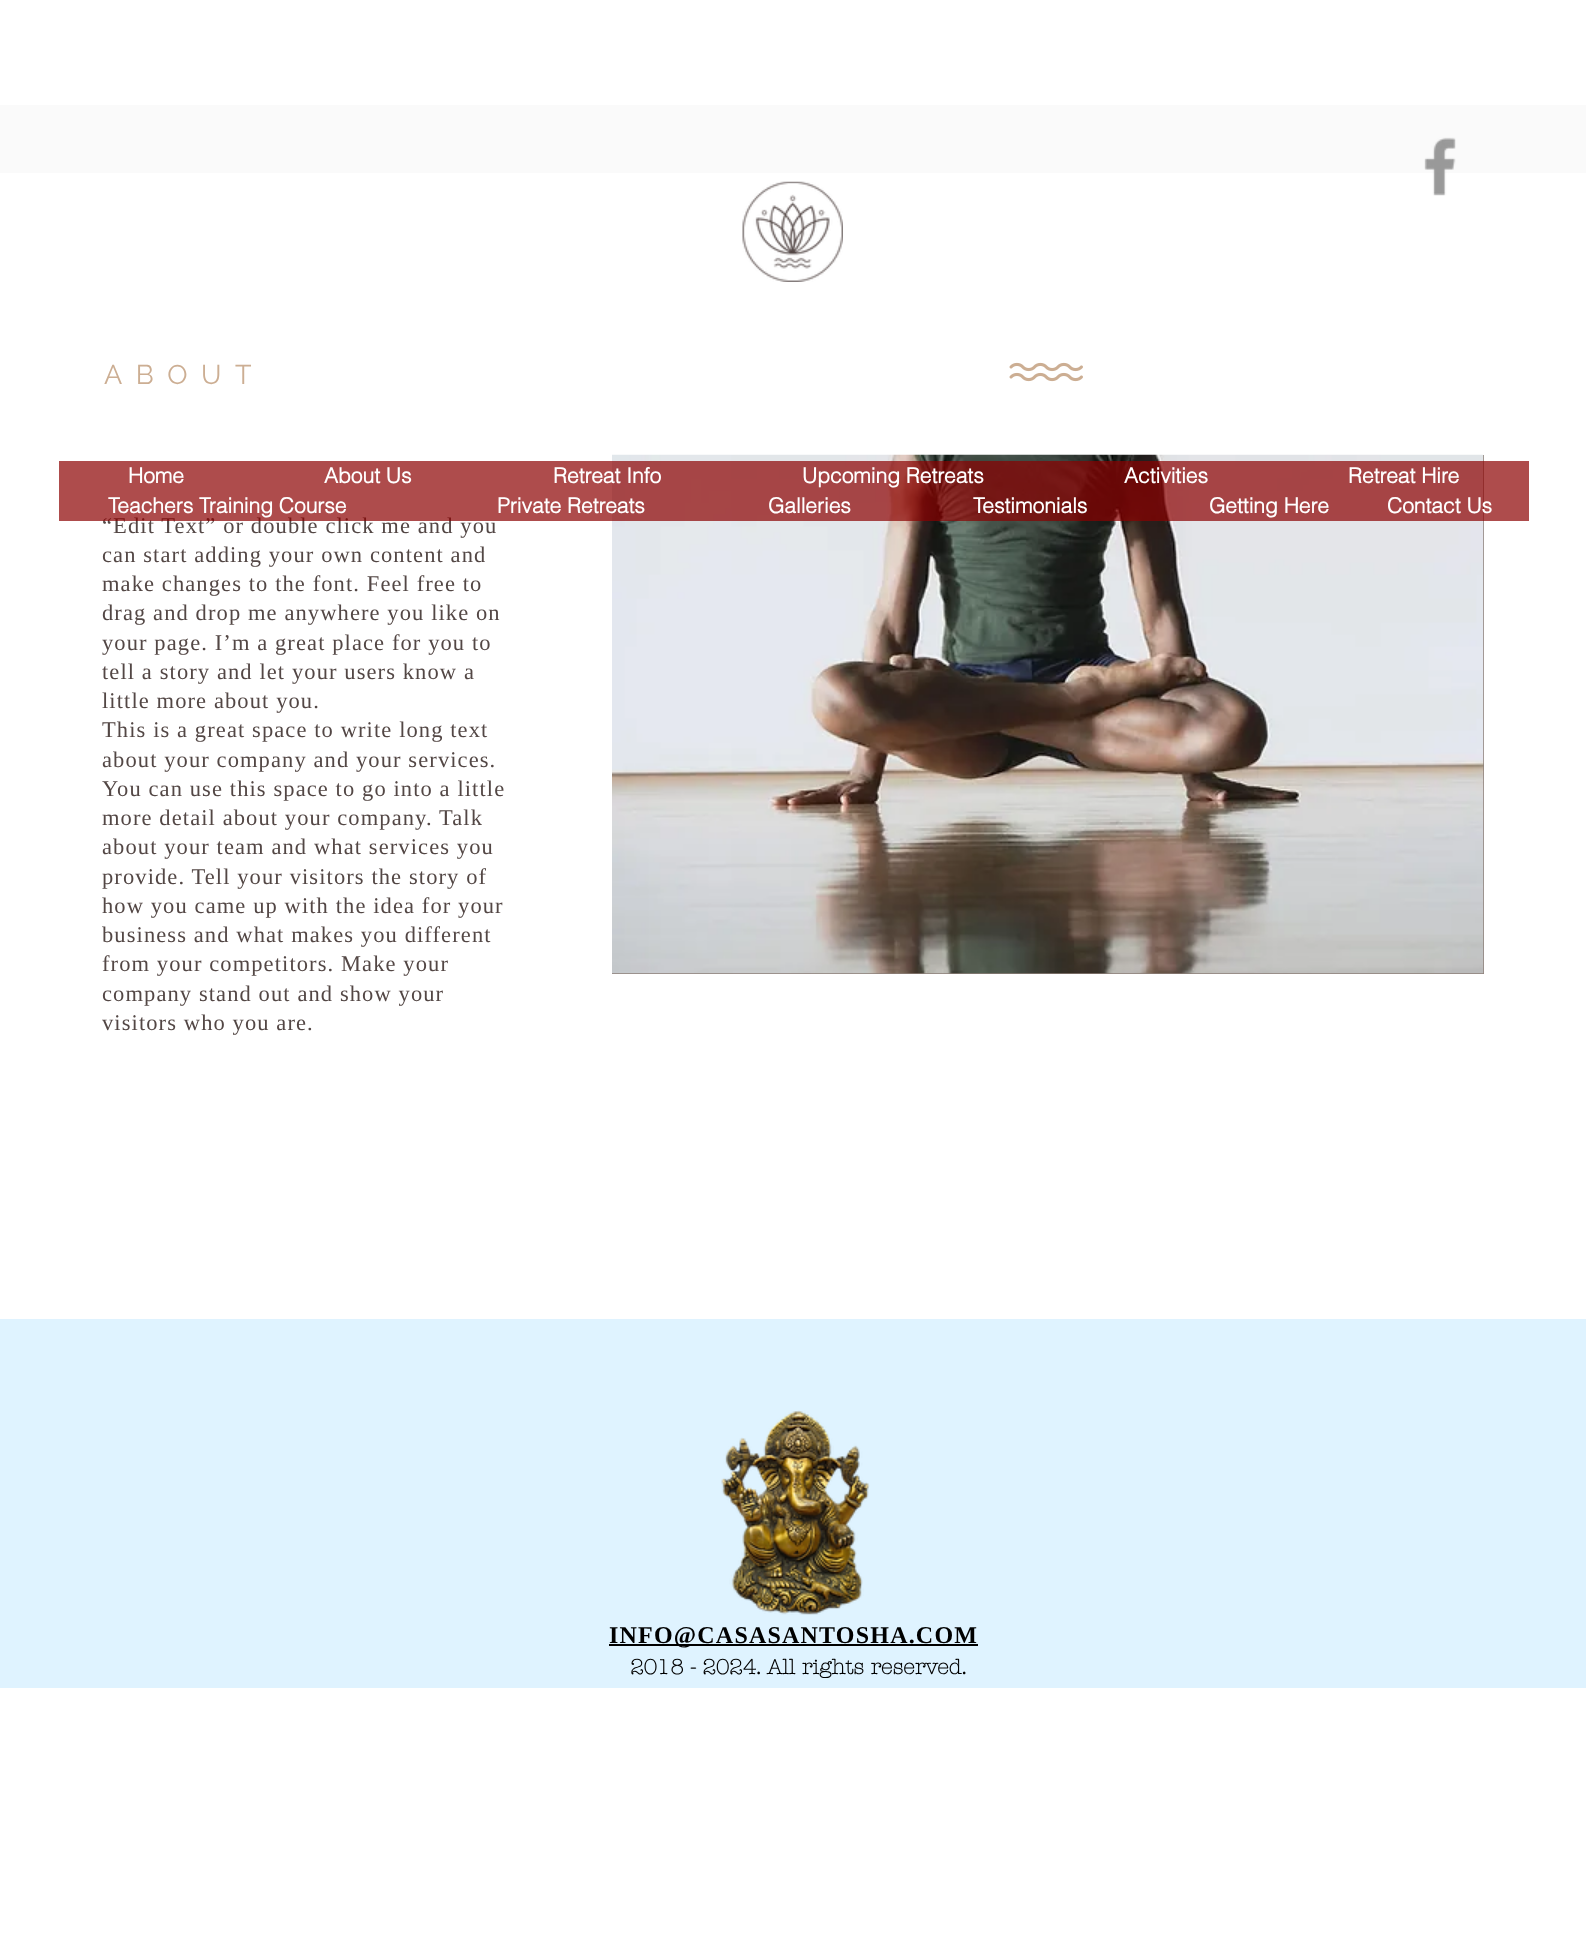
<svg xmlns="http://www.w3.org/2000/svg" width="1586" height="1942">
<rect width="100%" height="100%" fill="#fff"/>
<rect y="105" width="1586" height="68" fill="#fafafa"/>
<image x="742" y="181" width="101" height="101" href="media/1.png"/>
<text x="104" y="384" style="font-family:Raleway;font-size:27px;letter-spacing:13.5px;fill:#ccae93">ABOUT</text>
<image x="1009" y="362" width="74" height="20" href="media/2.png"/>
<text x="102" y="533" style="font-family:Liberation Serif;font-size:22.5px;letter-spacing:1.1px;fill:#534745">“Edit Text” or double click me and you</text>
<text x="102" y="562" style="font-family:Liberation Serif;font-size:22.5px;letter-spacing:1.1px;fill:#534745">can start adding your own content and</text>
<text x="102" y="591" style="font-family:Liberation Serif;font-size:22.5px;letter-spacing:1.1px;fill:#534745">make changes to the font. Feel free to</text>
<text x="102" y="620" style="font-family:Liberation Serif;font-size:22.5px;letter-spacing:1.1px;fill:#534745">drag and drop me anywhere you like on</text>
<text x="102" y="650" style="font-family:Liberation Serif;font-size:22.5px;letter-spacing:1.1px;fill:#534745">your page. I’m a great place for you to</text>
<text x="102" y="679" style="font-family:Liberation Serif;font-size:22.5px;letter-spacing:1.1px;fill:#534745">tell a story and let your users know a</text>
<text x="102" y="708" style="font-family:Liberation Serif;font-size:22.5px;letter-spacing:1.1px;fill:#534745">little more about you.</text>
<text x="102" y="737" style="font-family:Liberation Serif;font-size:22.5px;letter-spacing:1.1px;fill:#534745">This is a great space to write long text</text>
<text x="102" y="767" style="font-family:Liberation Serif;font-size:22.5px;letter-spacing:1.1px;fill:#534745">about your company and your services.</text>
<text x="102" y="796" style="font-family:Liberation Serif;font-size:22.5px;letter-spacing:1.1px;fill:#534745">You can use this space to go into a little</text>
<text x="102" y="825" style="font-family:Liberation Serif;font-size:22.5px;letter-spacing:1.1px;fill:#534745">more detail about your company. Talk</text>
<text x="102" y="854" style="font-family:Liberation Serif;font-size:22.5px;letter-spacing:1.1px;fill:#534745">about your team and what services you</text>
<text x="102" y="884" style="font-family:Liberation Serif;font-size:22.5px;letter-spacing:1.1px;fill:#534745">provide. Tell your visitors the story of</text>
<text x="102" y="913" style="font-family:Liberation Serif;font-size:22.5px;letter-spacing:1.1px;fill:#534745">how you came up with the idea for your</text>
<text x="102" y="942" style="font-family:Liberation Serif;font-size:22.5px;letter-spacing:1.1px;fill:#534745">business and what makes you different</text>
<text x="102" y="971" style="font-family:Liberation Serif;font-size:22.5px;letter-spacing:1.1px;fill:#534745">from your competitors. Make your</text>
<text x="102" y="1001" style="font-family:Liberation Serif;font-size:22.5px;letter-spacing:1.1px;fill:#534745">company stand out and show your</text>
<text x="102" y="1030" style="font-family:Liberation Serif;font-size:22.5px;letter-spacing:1.1px;fill:#534745">visitors who you are.</text>
<rect x="612" y="455" width="872" height="519" fill="#8d7f79"/>
<image x="612" y="454" width="872" height="520" href="media/3.png"/>
<image x="1424" y="137" width="32" height="59" href="media/4.png"/>
<rect x="59" y="461" width="1470" height="30" fill="#8b0000b3"/>
<text x="128" y="483" style="font-family:helvetica;font-size:21px;font-weight:bold;fill:#fff">Home</text>
<text x="324" y="483" style="font-family:helvetica;font-size:21px;font-weight:bold;fill:#fff">About Us</text>
<text x="553" y="483" style="font-family:helvetica;font-size:21px;font-weight:bold;fill:#fff">Retreat Info</text>
<text x="802" y="483" style="font-family:helvetica;font-size:21px;font-weight:bold;fill:#fff">Upcoming Retreats</text>
<text x="1124" y="483" style="font-family:helvetica;font-size:21px;font-weight:bold;fill:#fff">Activities</text>
<text x="1348" y="483" style="font-family:helvetica;font-size:21px;font-weight:bold;fill:#fff">Retreat Hire</text>
<rect x="59" y="491" width="343" height="30" fill="#8b0000b3"/>
<text x="108" y="513" style="font-family:helvetica;font-size:21px;font-weight:bold;fill:#fff">Teachers Training Course</text>
<rect x="402" y="491" width="344" height="30" fill="#8b0000b3"/>
<text x="497" y="513" style="font-family:helvetica;font-size:21px;font-weight:bold;fill:#fff">Private Retreats</text>
<rect x="746" y="491" width="133" height="30" fill="#8b0000b3"/>
<text x="768" y="513" style="font-family:helvetica;font-size:21px;font-weight:bold;fill:#fff">Galleries</text>
<rect x="879" y="491" width="308" height="30" fill="#8b0000b3"/>
<text x="973" y="513" style="font-family:helvetica;font-size:21px;font-weight:bold;fill:#fff">Testimonials</text>
<rect x="1187" y="491" width="171" height="30" fill="#8b0000b3"/>
<text x="1209" y="513" style="font-family:helvetica;font-size:21px;font-weight:bold;fill:#fff">Getting Here</text>
<rect x="1358" y="491" width="171" height="30" fill="#8b0000b3"/>
<text x="1387" y="513" style="font-family:helvetica;font-size:21px;font-weight:bold;fill:#fff">Contact Us</text>
<rect y="1319" width="1586" height="369" fill="#dff3ff"/>
<image x="721" y="1410" width="149" height="205" href="media/5.png"/>
<rect x="609" y="1644" width="369" height="2" fill="#000"/>
<text x="609" y="1643" style="font-family:Liberation Serif;font-size:24px;font-weight:bold;letter-spacing:1.2px;fill:#000">INFO@CASASANTOSHA.COM</text>
<text x="630" y="1674" style="font-family:'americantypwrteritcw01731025';font-size:21px;font-weight:bold;fill:#000">2018 - 2024. All rights reserved.</text>
</svg>
